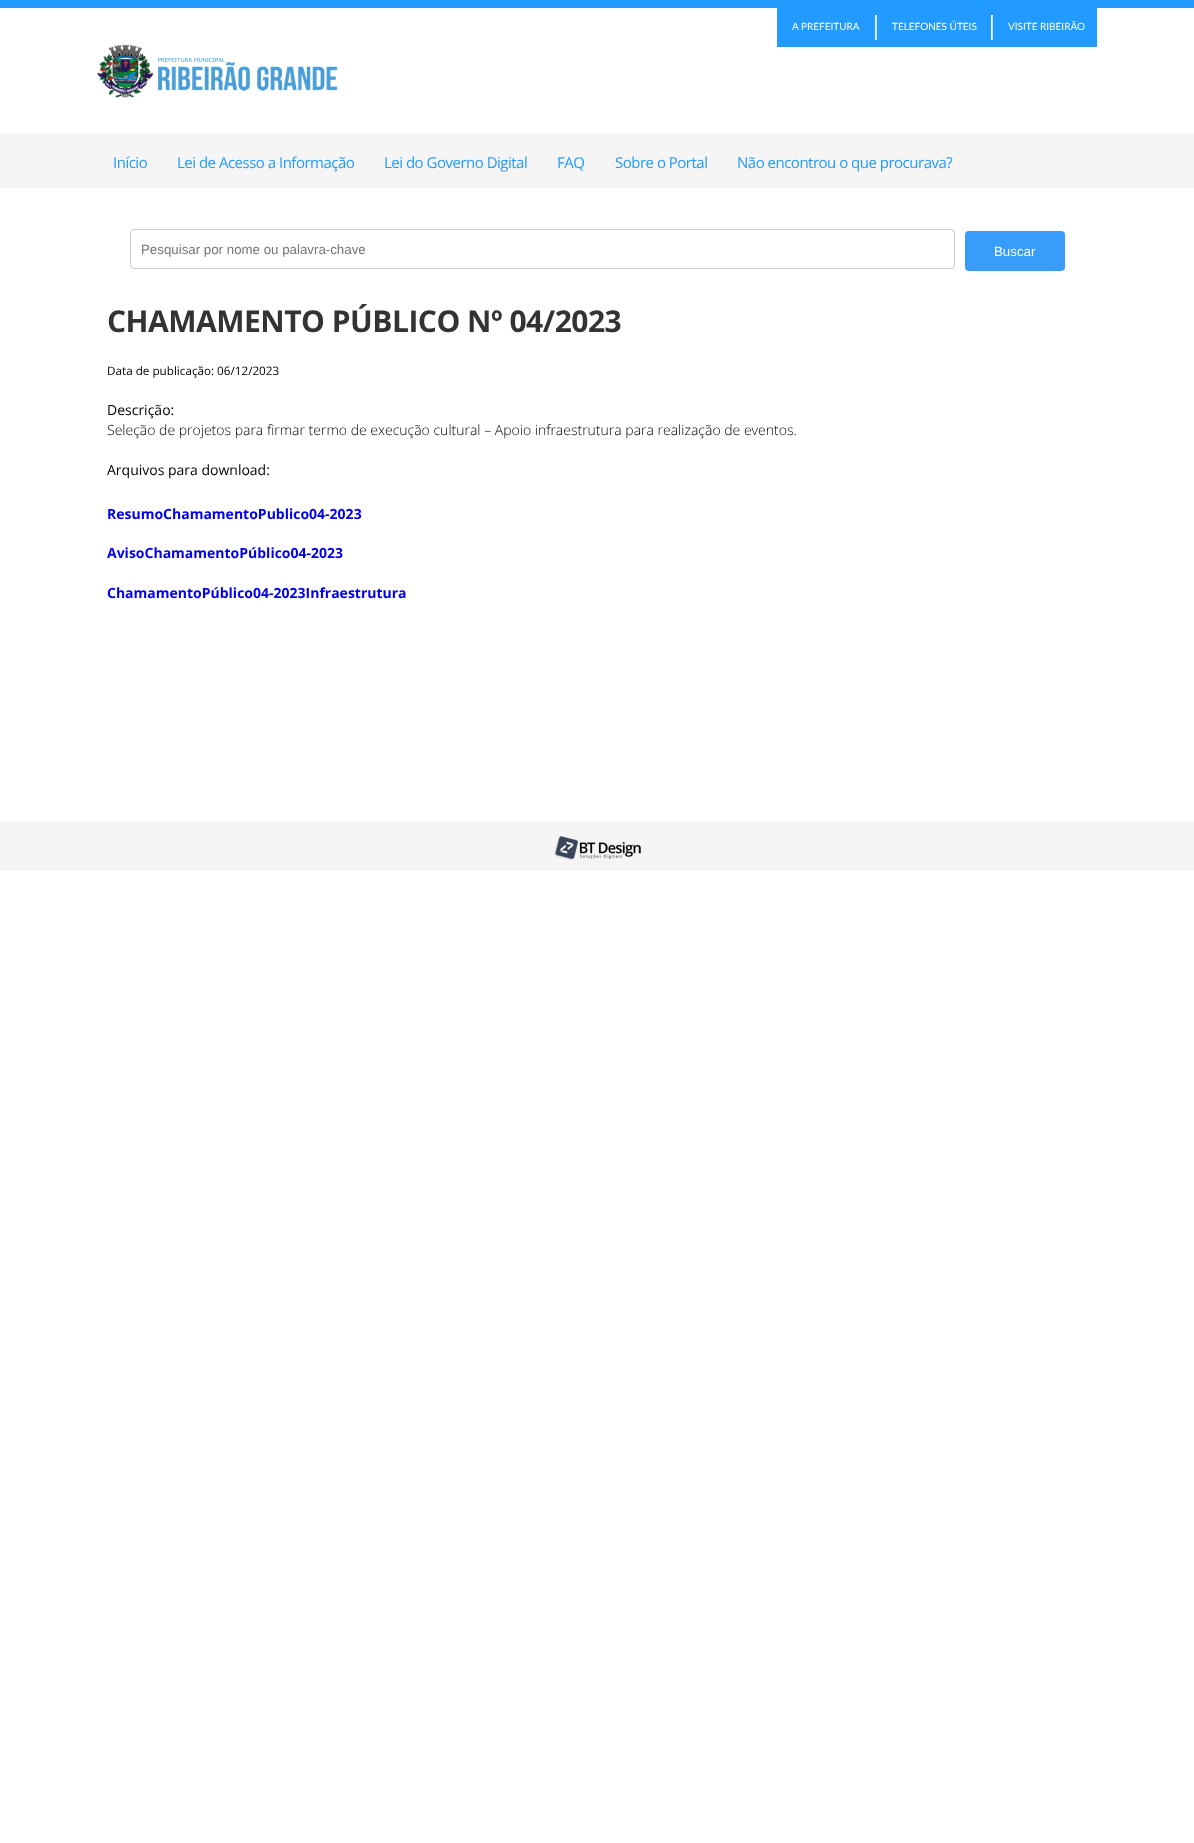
<svg xmlns="http://www.w3.org/2000/svg" width="1194" height="1843">
<defs>
<clipPath id="clip1"><rect x="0" y="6" width="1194" height="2"/></clipPath>
</defs>
<rect width="100%" height="100%" fill="#fff"/>
<rect width="1194" height="8" fill="#219bff"/>
<g clip-path="url(#clip1)">
<rect y="9" width="1194" height="125" fill="#ababab80" filter="blur(2px)"/>
</g>
<rect x="777" y="7" width="320" height="40" fill="#219bff"/>
<text x="792" y="30" style="font-family:Lato;font-size:10px;fill:#fff">A PREFEITURA</text>
<image x="875" y="15" width="2" height="25" href="media/1.png"/>
<text x="892" y="30" style="font-family:Lato;font-size:10px;fill:#fff">TELEFONES ÚTEIS</text>
<image x="991" y="15" width="2" height="25" href="media/1.png"/>
<text x="1008" y="30" style="font-family:Lato;font-size:10px;fill:#fff">VISITE RIBEIRÃO</text>
<image x="97" y="44" width="241" height="54" href="media/2.png"/>
<rect y="133" width="1194" height="55" fill="#f5f5f5"/>
<text x="113" y="168" style="font-family:Open Sans;font-size:15px;letter-spacing:-0.5px;fill:#219bff">Início</text>
<text x="177" y="168" style="font-family:Open Sans;font-size:15px;letter-spacing:-0.5px;fill:#219bff">Lei de Acesso a Informação</text>
<text x="384" y="168" style="font-family:Open Sans;font-size:15px;letter-spacing:-0.5px;fill:#219bff">Lei do Governo Digital</text>
<text x="557" y="168" style="font-family:Open Sans;font-size:15px;letter-spacing:-0.5px;fill:#219bff">FAQ</text>
<text x="615" y="168" style="font-family:Open Sans;font-size:15px;letter-spacing:-0.5px;fill:#219bff">Sobre o Portal</text>
<text x="737" y="168" style="font-family:Open Sans;font-size:15px;letter-spacing:-0.5px;fill:#219bff">Não encontrou o que procurava?</text>
<rect x="130.5" y="229.5" width="824" height="39" rx="3.5" fill="none" stroke="#ccc"/>
<text x="141" y="254" style="font-family:Liberation Sans;font-size:13.3px;fill:#757575">Pesquisar por nome ou palavra-chave</text>
<rect x="965" y="231" width="100" height="40" rx="4" fill="#389cfb"/>
<text x="994" y="256" style="font-family:Liberation Sans;font-size:13.3px;fill:#fff">Buscar</text>
<text x="107" y="332" style="font-family:Open Sans;font-size:30px;font-weight:bold;letter-spacing:-0.5px;fill:#333">CHAMAMENTO PÚBLICO Nº 04/2023</text>
<text x="107" y="375" style="font-family:Open Sans;font-size:11.7px;fill:#000">Data de publicação: 06/12/2023</text>
<text x="107" y="415" style="font-family:Open Sans;font-size:14px;fill:#000">Descrição:</text>
<text x="107" y="435" style="font-family:Open Sans;font-size:14px;font-weight:300;fill:#000">Seleção de projetos para firmar termo de execução cultural – Apoio infraestrutura para realização de eventos.</text>
<text x="107" y="475" style="font-family:Open Sans;font-size:14px;fill:#000">Arquivos para download:</text>
<text x="107" y="519" style="font-family:Open Sans;font-size:14px;font-weight:bold;fill:#00e">ResumoChamamentoPublico04-2023</text>
<text x="107" y="558" style="font-family:Open Sans;font-size:14px;font-weight:bold;fill:#00e">AvisoChamamentoPúblico04-2023</text>
<text x="107" y="598" style="font-family:Open Sans;font-size:14px;font-weight:bold;fill:#00e">ChamamentoPúblico04-2023Infraestrutura</text>
<rect y="821" width="1194" height="50" fill="#f5f5f5"/>
<image x="554" y="836" width="87" height="24" href="media/3.png"/>
</svg>
